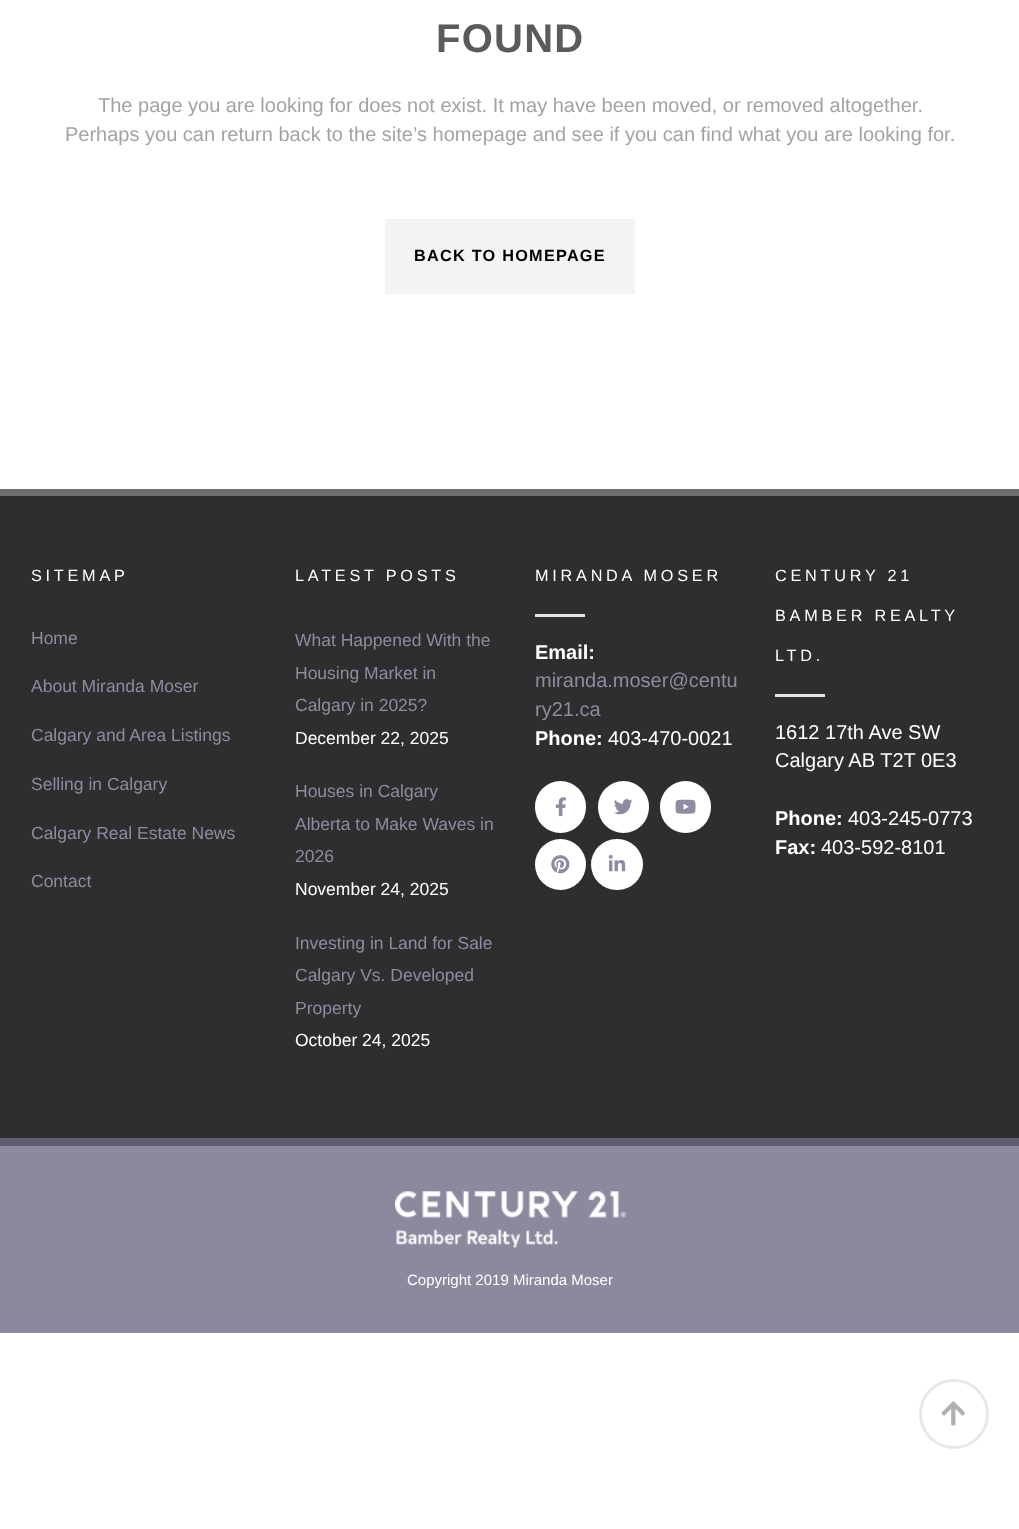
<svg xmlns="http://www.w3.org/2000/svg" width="1019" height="1529">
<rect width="100%" height="100%" fill="#fff"/>
<text x="436" y="52" style="font-family:Liberation Sans;font-size:40px;font-weight:bold;letter-spacing:1.25px;fill:#5b5b5b">FOUND</text>
<text x="98" y="112" style="font-family:Liberation Sans;font-size:20px;fill:#a3a3a3">The page you are looking for does not exist. It may have been moved, or removed altogether.</text>
<text x="65" y="141" style="font-family:Liberation Sans;font-size:20px;fill:#a3a3a3">Perhaps you can return back to the site’s homepage and see if you can find what you are looking for.</text>
<rect x="385" y="219" width="250" height="75" fill="#f3f3f1"/>
<text x="414" y="261" style="font-family:Liberation Sans;font-size:16.25px;font-weight:bold;letter-spacing:1.25px;fill:#000">BACK TO HOMEPAGE</text>
<rect y="496" width="1019" height="642" fill="#2e2e2e"/>
<rect y="489" width="1019" height="7" fill="#6e6e6e"/>
<text x="31" y="581" style="font-family:Liberation Sans;font-size:16.25px;letter-spacing:3.75px;fill:#fff">SITEMAP</text>
<text x="31" y="644" style="font-family:Liberation Sans;font-size:17.5px;fill:#8d8ca1">Home</text>
<text x="31" y="692" style="font-family:Liberation Sans;font-size:17.5px;fill:#8d8ca1">About Miranda Moser</text>
<text x="31" y="741" style="font-family:Liberation Sans;font-size:17.5px;fill:#8d8ca1">Calgary and Area Listings</text>
<text x="31" y="790" style="font-family:Liberation Sans;font-size:17.5px;fill:#8d8ca1">Selling in Calgary</text>
<text x="31" y="839" style="font-family:Liberation Sans;font-size:17.5px;fill:#8d8ca1">Calgary Real Estate News</text>
<text x="31" y="887" style="font-family:Liberation Sans;font-size:17.5px;fill:#8d8ca1">Contact</text>
<text x="295" y="581" style="font-family:Liberation Sans;font-size:16.25px;letter-spacing:3.75px;fill:#fff">LATEST POSTS</text>
<text x="295" y="646" style="font-family:Liberation Sans;font-size:17.5px;fill:#8d8ca1">What Happened With the</text>
<text x="295" y="679" style="font-family:Liberation Sans;font-size:17.5px;fill:#8d8ca1">Housing Market in</text>
<text x="295" y="711" style="font-family:Liberation Sans;font-size:17.5px;fill:#8d8ca1">Calgary in 2025?</text>
<text x="295" y="744" style="font-family:Liberation Sans;font-size:17.5px;fill:#fff">December 22, 2025</text>
<text x="295" y="797" style="font-family:Liberation Sans;font-size:17.5px;fill:#8d8ca1">Houses in Calgary</text>
<text x="295" y="830" style="font-family:Liberation Sans;font-size:17.5px;fill:#8d8ca1">Alberta to Make Waves in</text>
<text x="295" y="862" style="font-family:Liberation Sans;font-size:17.5px;fill:#8d8ca1">2026</text>
<text x="295" y="895" style="font-family:Liberation Sans;font-size:17.5px;fill:#fff">November 24, 2025</text>
<text x="295" y="949" style="font-family:Liberation Sans;font-size:17.5px;fill:#8d8ca1">Investing in Land for Sale</text>
<text x="295" y="981" style="font-family:Liberation Sans;font-size:17.5px;fill:#8d8ca1">Calgary Vs. Developed</text>
<text x="295" y="1014" style="font-family:Liberation Sans;font-size:17.5px;fill:#8d8ca1">Property</text>
<text x="295" y="1046" style="font-family:Liberation Sans;font-size:17.5px;fill:#fff">October 24, 2025</text>
<text x="535" y="581" style="font-family:Liberation Sans;font-size:16.25px;letter-spacing:3.75px;fill:#fff">MIRANDA MOSER</text>
<rect x="535" y="614" width="50" height="3" fill="#e5e5e5"/>
<text x="535" y="659" style="font-family:Liberation Sans;font-size:20px;font-weight:bold;fill:#fff">Email:</text>
<text x="535" y="687" style="font-family:Liberation Sans;font-size:20px;fill:#8d8ca1">miranda.moser@centu</text>
<text x="535" y="716" style="font-family:Liberation Sans;font-size:20px;fill:#8d8ca1">ry21.ca</text>
<text x="535" y="745" style="font-family:Liberation Sans;font-size:20px;font-weight:bold;fill:#fff">Phone:</text>
<text x="608" y="745" style="font-family:Liberation Sans;font-size:20px;fill:#fff">403-470-0021</text>
<rect x="535" y="781" width="51" height="52" rx="25.5" fill="#fff"/>
<image x="555" y="797" width="11" height="20" href="media/1.png"/>
<rect x="598" y="781" width="51" height="52" rx="25.5" fill="#fff"/>
<image x="614" y="799" width="19" height="16" href="media/2.png"/>
<rect x="660" y="781" width="51" height="52" rx="25.5" fill="#fff"/>
<image x="675" y="799" width="21" height="15" href="media/3.png"/>
<circle cx="560.5" cy="864.5" r="25.5" fill="#fff"/>
<image x="551" y="855" width="19" height="19" href="media/4.png"/>
<rect x="591" y="839" width="52" height="51" rx="25.5" fill="#fff"/>
<image x="608" y="854" width="18" height="18" href="media/5.png"/>
<text x="775" y="581" style="font-family:Liberation Sans;font-size:16.25px;letter-spacing:3.75px;fill:#fff">CENTURY 21</text>
<text x="775" y="621" style="font-family:Liberation Sans;font-size:16.25px;letter-spacing:3.75px;fill:#fff">BAMBER REALTY</text>
<text x="775" y="661" style="font-family:Liberation Sans;font-size:16.25px;letter-spacing:3.75px;fill:#fff">LTD.</text>
<rect x="775" y="694" width="50" height="3" fill="#e5e5e5"/>
<text x="775" y="739" style="font-family:Liberation Sans;font-size:20px;fill:#fff">1612 17th Ave SW</text>
<text x="775" y="767" style="font-family:Liberation Sans;font-size:20px;fill:#fff">Calgary AB T2T 0E3</text>
<text x="775" y="825" style="font-family:Liberation Sans;font-size:20px;font-weight:bold;fill:#fff">Phone:</text>
<text x="848" y="825" style="font-family:Liberation Sans;font-size:20px;fill:#fff">403-245-0773</text>
<text x="775" y="854" style="font-family:Liberation Sans;font-size:20px;font-weight:bold;fill:#fff">Fax:</text>
<text x="821" y="854" style="font-family:Liberation Sans;font-size:20px;fill:#fff">403-592-8101</text>
<rect y="1146" width="1019" height="187" fill="#8a899d"/>
<rect y="1138" width="1019" height="7" fill="#5d5c6d"/>
<rect y="1145" width="1019" height="1" fill="#616075"/>
<image x="395" y="1191" width="232" height="57" href="media/6.png"/>
<text x="407" y="1285" style="font-family:Liberation Sans;font-size:15px;fill:#fff">Copyright 2019 Miranda Moser</text>
<circle cx="954" cy="1414" r="33.5" fill="none" stroke="#e8e8e8" stroke-width="3"/>
<image x="941" y="1401" width="24" height="25" href="media/7.png"/>
</svg>
